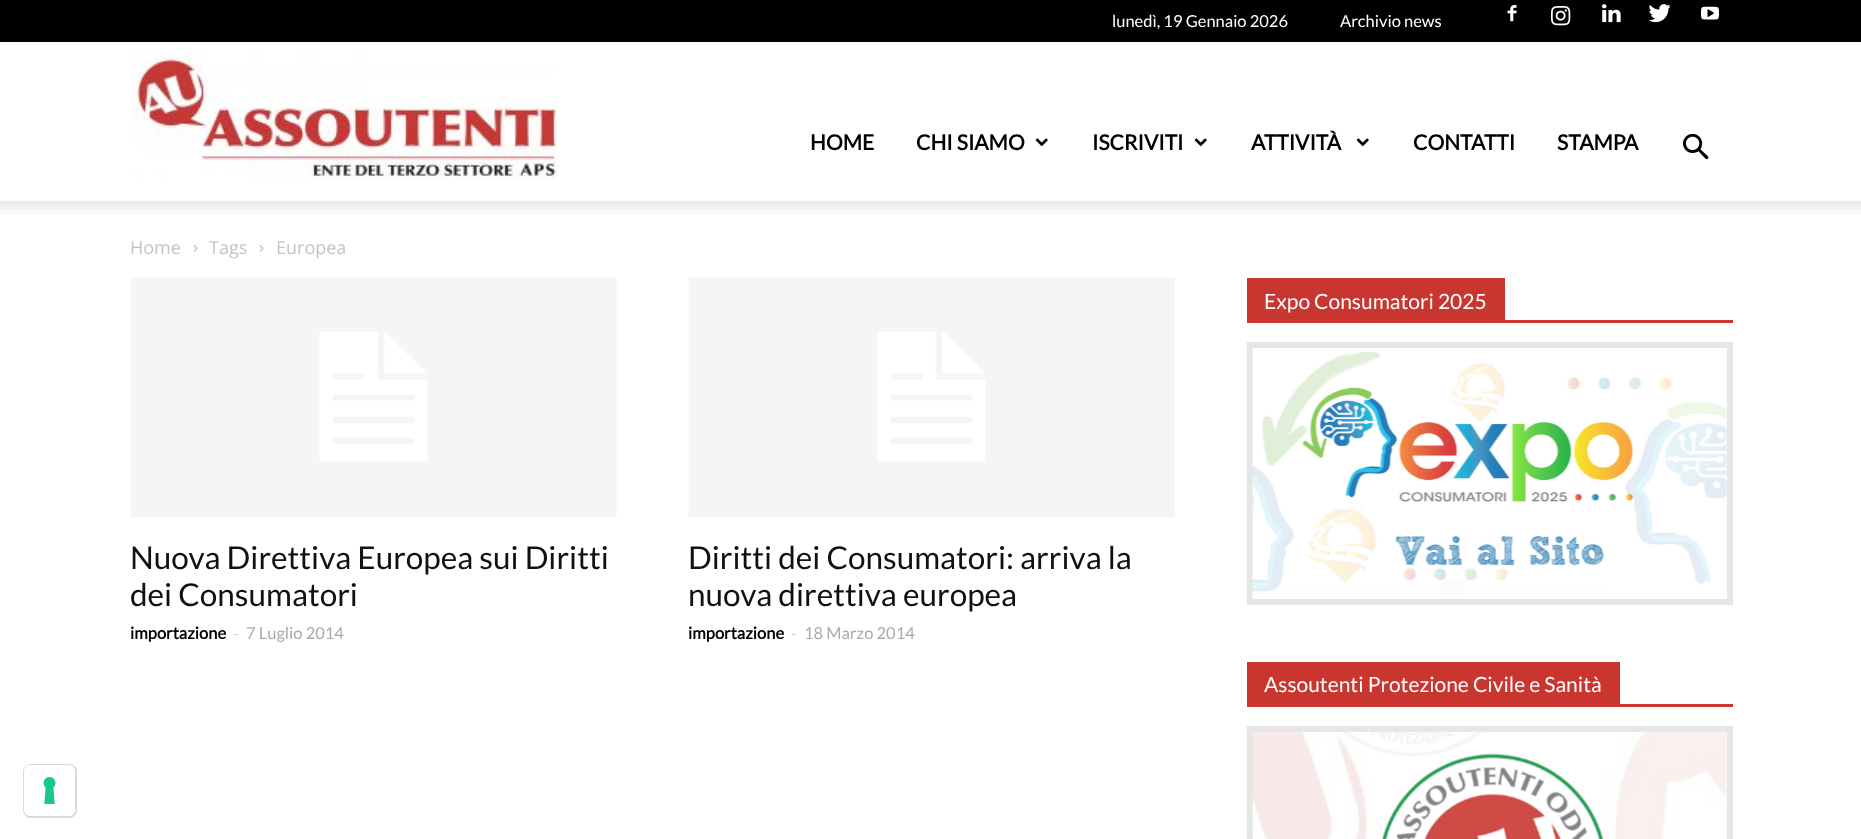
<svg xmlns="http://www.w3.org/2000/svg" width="1861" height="839">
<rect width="100%" height="100%" fill="#fff"/>
<rect width="1861" height="42" fill="#000"/>
<text x="1112" y="27" style="font-family:Lato;font-size:16.5px;fill:#fff">lunedì, 19 Gennaio 2026</text>
<text x="1340" y="27" style="font-family:Lato;font-size:16.5px;fill:#fff">Archivio news</text>
<image x="1507" y="5" width="10" height="17" href="media/1.png"/>
<image x="1551" y="6" width="20" height="20" href="media/2.png"/>
<image x="1602" y="4" width="19" height="19" href="media/3.png"/>
<image x="1648" y="4" width="23" height="19" href="media/4.png"/>
<image x="1701" y="6" width="18" height="14" href="media/5.png"/>
<image x="130" y="49" width="428" height="131" href="media/6.png"/>
<text x="810" y="150" style="font-family:Lato;font-size:21px;font-weight:bold;fill:#000">HOME</text>
<text x="916" y="150" style="font-family:Lato;font-size:21px;font-weight:bold;fill:#000">CHI SIAMO</text>
<image x="1035" y="138" width="13" height="9" href="media/7.png"/>
<text x="1092" y="150" style="font-family:Lato;font-size:21px;font-weight:bold;fill:#000">ISCRIVITI</text>
<image x="1194" y="138" width="13" height="9" href="media/7.png"/>
<text x="1251" y="150" style="font-family:Lato;font-size:21px;font-weight:bold;fill:#000">ATTIVITÀ</text>
<image x="1356" y="138" width="13" height="9" href="media/7.png"/>
<text x="1413" y="150" style="font-family:Lato;font-size:21px;font-weight:bold;fill:#000">CONTATTI</text>
<text x="1557" y="150" style="font-family:Lato;font-size:21px;font-weight:bold;fill:#000">STAMPA</text>
<image x="1683" y="133" width="26" height="27" href="media/8.png"/>
<image x="0" y="201" width="1861" height="13" href="media/9.png"/>
<text x="130" y="254" style="font-family:Open Sans;font-size:18px;fill:#c3c3c3">Home</text>
<image x="193" y="244" width="5" height="8" href="media/10.png"/>
<text x="209" y="254" style="font-family:Open Sans;font-size:18px;fill:#c3c3c3">Tags</text>
<image x="259" y="244" width="5" height="8" href="media/10.png"/>
<text x="276" y="254" style="font-family:Open Sans;font-size:18px;fill:#c3c3c3">Europea</text>
<image x="130" y="277" width="487" height="241" href="media/11.png"/>
<text x="130" y="569" style="font-family:Lato;font-size:31.5px;fill:#111">Nuova Direttiva Europea sui Diritti</text>
<text x="130" y="606" style="font-family:Lato;font-size:31.5px;fill:#111">dei Consumatori</text>
<text x="130" y="639" style="font-family:Lato;font-size:16.5px;font-weight:bold;fill:#000">importazione</text>
<text x="233" y="639" style="font-family:Open Sans;font-size:16.5px;fill:#ccc">-</text>
<text x="246" y="639" style="font-family:Lato;font-size:16.5px;fill:#aaa">7 Luglio 2014</text>
<image x="688" y="277" width="487" height="241" href="media/11.png"/>
<text x="688" y="569" style="font-family:Lato;font-size:31.5px;fill:#111">Diritti dei Consumatori: arriva la</text>
<text x="688" y="606" style="font-family:Lato;font-size:31.5px;fill:#111">nuova direttiva europea</text>
<text x="688" y="639" style="font-family:Lato;font-size:16.5px;font-weight:bold;fill:#000">importazione</text>
<text x="791" y="639" style="font-family:Open Sans;font-size:16.5px;fill:#ccc">-</text>
<text x="804" y="639" style="font-family:Lato;font-size:16.5px;fill:#aaa">18 Marzo 2014</text>
<rect x="1247" y="320" width="486" height="3" fill="#c9362f"/>
<rect x="1247" y="278" width="258" height="42" fill="#c9362f"/>
<text x="1264" y="309" style="font-family:Lato;font-size:21px;fill:#fff">Expo Consumatori 2025</text>
<rect x="1250" y="345" width="480" height="257" fill="none" stroke="#e6e6e6" stroke-width="6"/>
<image x="1252" y="348" width="475" height="251" href="media/12.png"/>
<rect x="1247" y="704" width="486" height="3" fill="#c9362f"/>
<rect x="1247" y="662" width="373" height="42" fill="#c9362f"/>
<text x="1264" y="692" style="font-family:Lato;font-size:21px;fill:#fff">Assoutenti Protezione Civile e Sanità</text>
<rect x="1250" y="729" width="480" height="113" fill="none" stroke="#e6e6e6" stroke-width="6"/>
<image x="1252" y="731" width="475" height="108" href="media/13.png"/>
<rect x="24" y="765" width="52" height="52" rx="7" fill="none" stroke="#d9d9d9" stroke-width="2"/>
<rect x="24" y="765" width="51" height="51" rx="6" fill="#fff"/>
<image x="43" y="777" width="13" height="27" href="media/14.png"/>
</svg>
